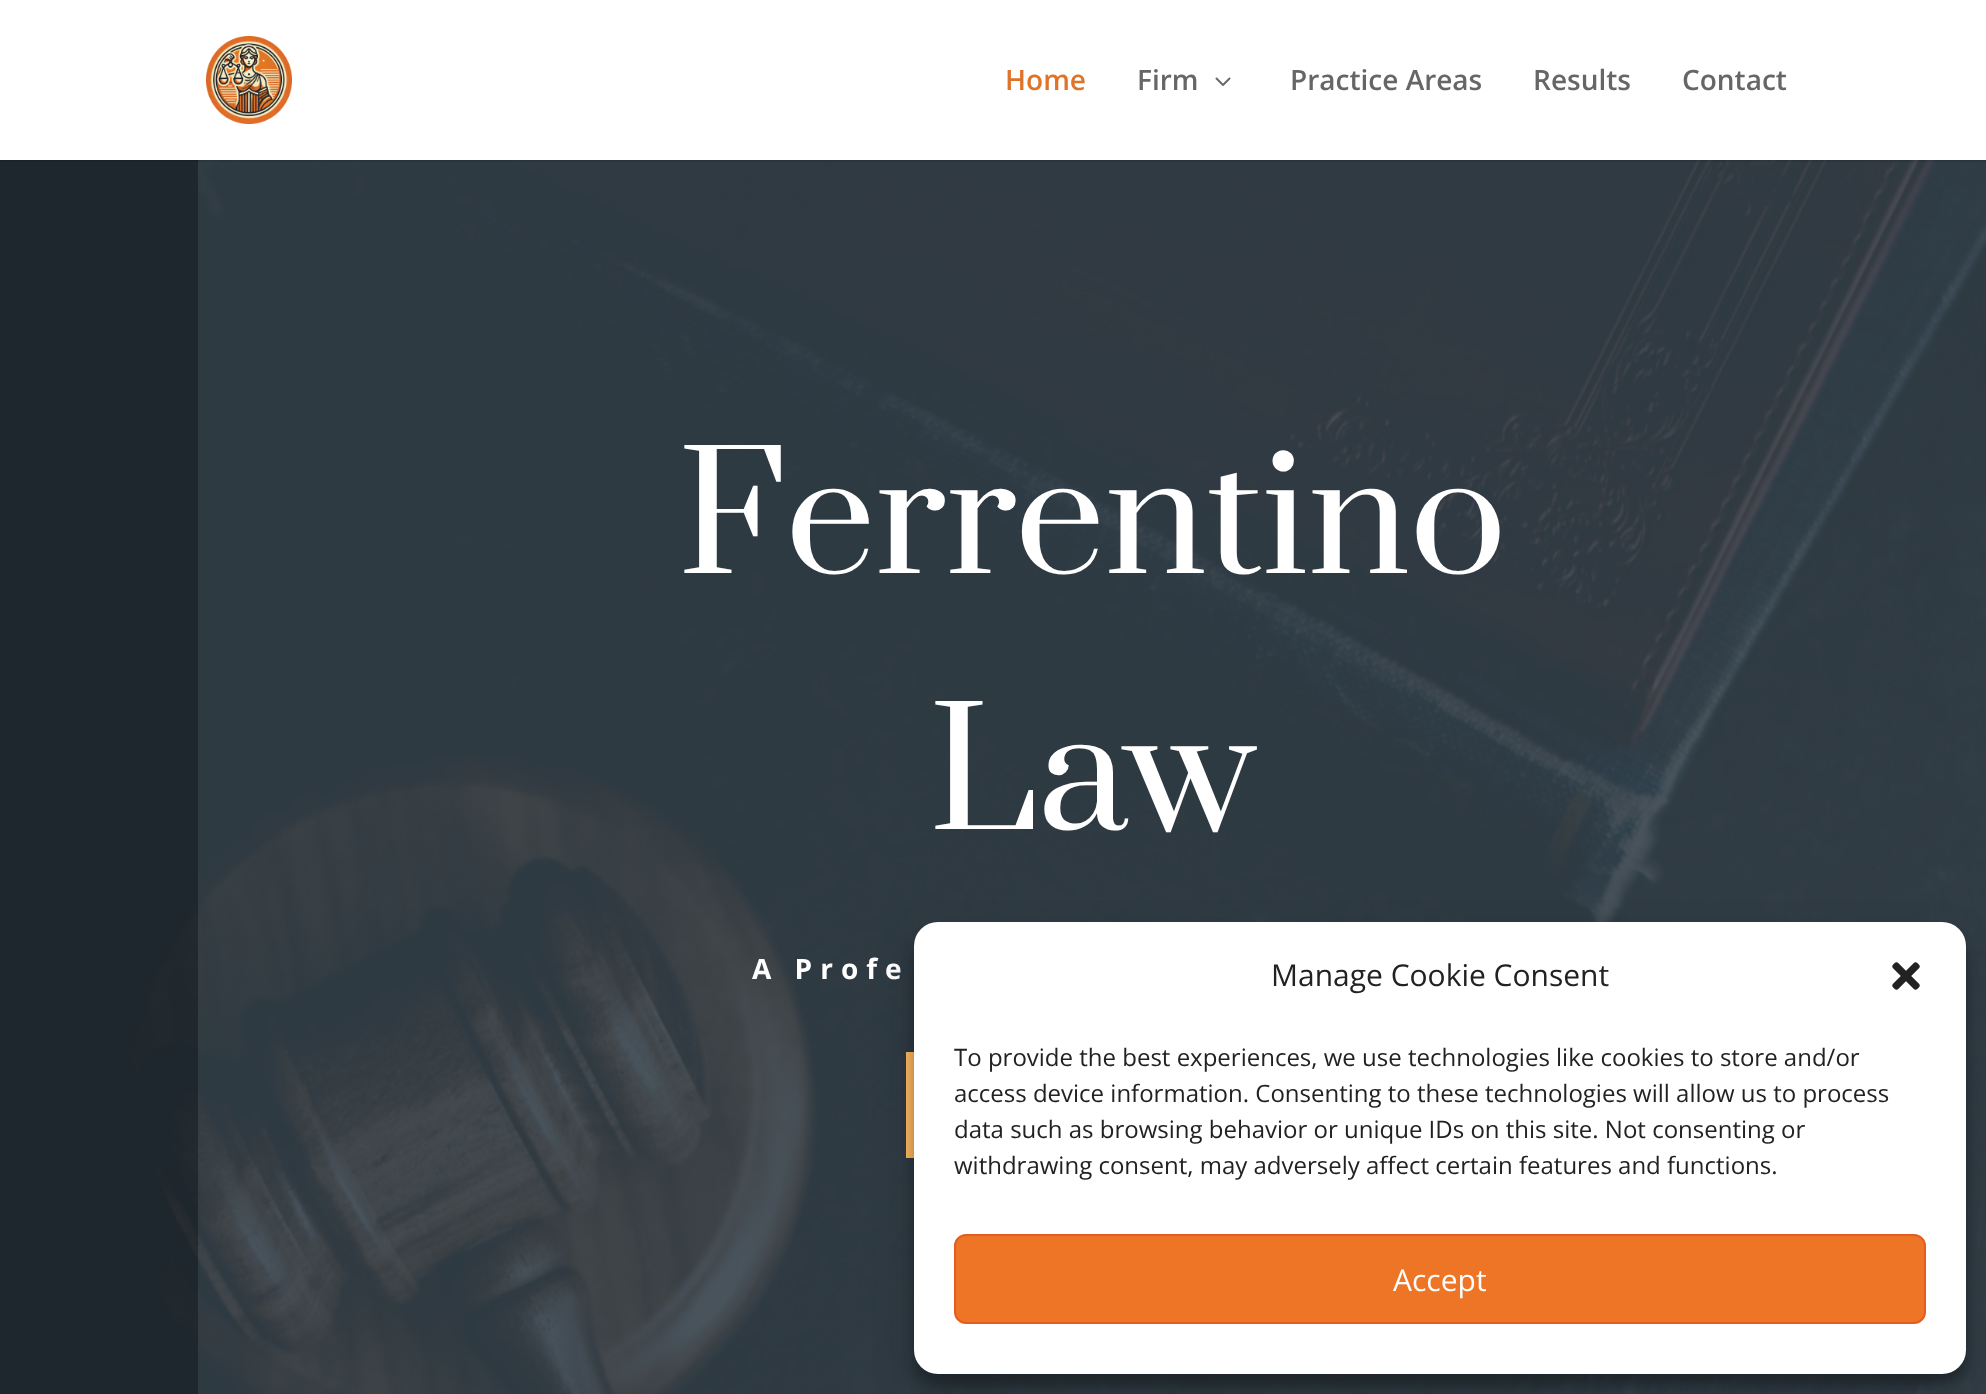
<svg xmlns="http://www.w3.org/2000/svg" width="1986" height="1394">
<rect width="100%" height="100%" fill="#fff"/>
<image x="0" y="160" width="1986" height="1234" href="media/3.png"/>
<rect y="160" width="198" height="1234" fill="#1f2830f0"/>
<rect y="160" width="1986" height="2" fill="#0000001a"/>
<image x="206" y="36" width="86" height="88" href="media/1.png"/>
<text x="1005" y="90" style="font-family:Open Sans;font-size:28px;font-weight:600;fill:#e0732a">Home</text>
<text x="1137" y="90" style="font-family:Open Sans;font-size:28px;font-weight:600;fill:#666">Firm</text>
<image x="1215" y="77" width="16" height="9" href="media/2.png"/>
<text x="1290" y="90" style="font-family:Open Sans;font-size:28px;font-weight:600;fill:#666">Practice Areas</text>
<text x="1533" y="90" style="font-family:Open Sans;font-size:28px;font-weight:600;fill:#666">Results</text>
<text x="1682" y="90" style="font-family:Open Sans;font-size:28px;font-weight:600;fill:#666">Contact</text>
<text x="678" y="573" style="font-family:Prata;font-size:160px;fill:#fff">Ferrentino</text>
<text x="929" y="829" style="font-family:Prata;font-size:160px;fill:#fff">Law</text>
<text x="752" y="979" style="font-family:Open Sans;font-size:28px;font-weight:bold;letter-spacing:8px;fill:#fff">A Profe</text>
<rect x="906" y="1052" width="8" height="106" fill="#ffba60"/>
<rect x="914" y="934" width="1052" height="452" rx="24" fill="#0000003b" filter="blur(6px)"/>
<rect x="914" y="942" width="1052" height="452" rx="24" fill="#00000030" filter="blur(20px)"/>
<rect x="914" y="922" width="1052" height="452" rx="24" fill="#fff"/>
<text x="1271" y="986" style="font-family:Open Sans;font-size:30px;fill:#222">Manage Cookie Consent</text>
<image x="1892" y="962" width="28" height="28" href="media/4.png"/>
<text x="954" y="1066" style="font-family:Open Sans;font-size:24px;fill:#222">To provide the best experiences, we use technologies like cookies to store and/or</text>
<text x="954" y="1102" style="font-family:Open Sans;font-size:24px;fill:#222">access device information. Consenting to these technologies will allow us to process</text>
<text x="954" y="1138" style="font-family:Open Sans;font-size:24px;fill:#222">data such as browsing behavior or unique IDs on this site. Not consenting or</text>
<text x="954" y="1174" style="font-family:Open Sans;font-size:24px;fill:#222">withdrawing consent, may adversely affect certain features and functions.</text>
<rect x="955" y="1235" width="970" height="88" rx="11" fill="#ed7525" stroke="#e55c22" stroke-width="2"/>
<text x="1393" y="1291" style="font-family:Open Sans;font-size:30px;fill:#fff">Accept</text>
</svg>
